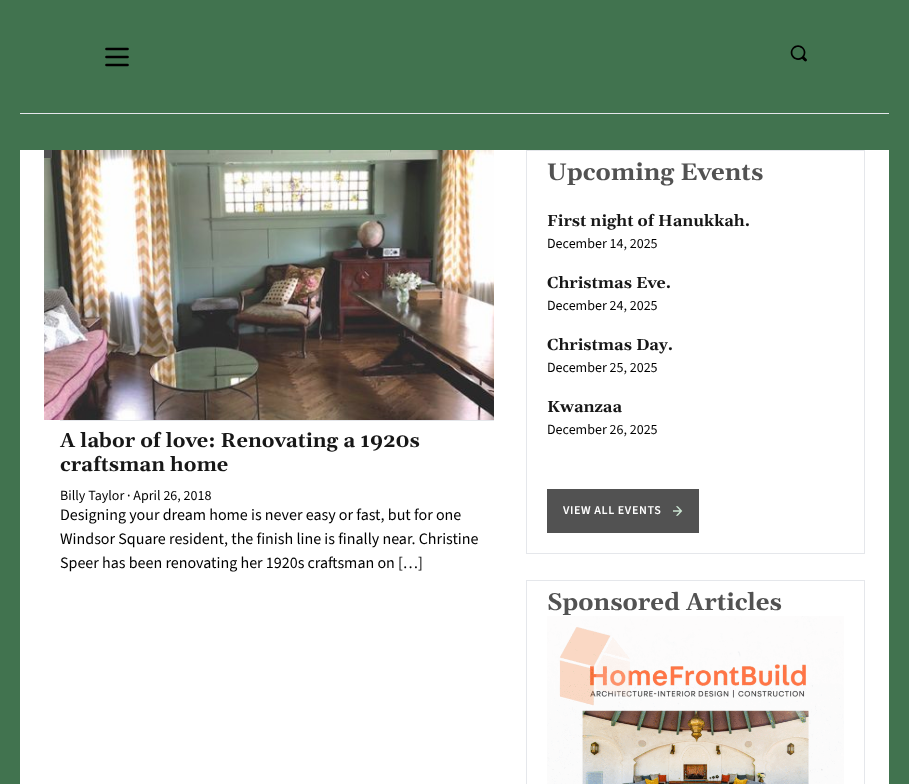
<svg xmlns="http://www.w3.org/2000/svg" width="909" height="784">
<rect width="100%" height="100%" fill="#41734f"/>
<path d="M106.5 49h21m-21 8h21m-21 8h21" fill="none" stroke="#000" stroke-width="2.7" stroke-linecap="round" stroke-linejoin="round"/>
<image x="790" y="45" width="17" height="17" href="media/1.png"/>
<rect x="20" y="113" width="869" height="1" fill="#e5e7eb"/>
<rect x="20" y="150" width="869" height="634" fill="#fff"/>
<image x="44" y="150" width="450" height="270" href="media/2.png"/>
<rect x="44" y="150" width="8" height="8" fill="#525252"/>
<rect x="60" y="420" width="434" height="1" fill="#e5e7eb"/>
<text x="60" y="447" style="font-family:Gelasio;font-size:20px;font-weight:bold;fill:#171717">A labor of love: Renovating a 1920s</text>
<text x="60" y="471" style="font-family:Gelasio;font-size:20px;font-weight:bold;fill:#171717">craftsman home</text>
<text x="60" y="500" style="font-family:'Source Sans 3';font-size:14px;fill:#000">Billy Taylor · April 26, 2018</text>
<text x="60" y="520" style="font-family:'Source Sans 3';font-size:16px;fill:#000">Designing your dream home is never easy or fast, but for one</text>
<text x="60" y="544" style="font-family:'Source Sans 3';font-size:16px;fill:#000">Windsor Square resident, the finish line is finally near. Christine</text>
<text x="60" y="568" style="font-family:'Source Sans 3';font-size:16px;fill:#000">Speer has been renovating her 1920s craftsman on […]</text>
<rect x="526.5" y="150.5" width="338" height="403" fill="none" stroke="#e5e7eb"/>
<text x="547" y="180" style="font-family:Gelasio;font-size:24px;font-weight:bold;fill:#525252">Upcoming Events</text>
<text x="547" y="226" style="font-family:Gelasio;font-size:16px;font-weight:bold;fill:#171717">First night of Hanukkah.</text>
<text x="547" y="248" style="font-family:'Source Sans 3';font-size:14px;fill:#000">December 14, 2025</text>
<text x="547" y="288" style="font-family:Gelasio;font-size:16px;font-weight:bold;fill:#171717">Christmas Eve.</text>
<text x="547" y="310" style="font-family:'Source Sans 3';font-size:14px;fill:#000">December 24, 2025</text>
<text x="547" y="350" style="font-family:Gelasio;font-size:16px;font-weight:bold;fill:#171717">Christmas Day.</text>
<text x="547" y="372" style="font-family:'Source Sans 3';font-size:14px;fill:#000">December 25, 2025</text>
<text x="547" y="412" style="font-family:Gelasio;font-size:16px;font-weight:bold;fill:#171717">Kwanzaa</text>
<text x="547" y="434" style="font-family:'Source Sans 3';font-size:14px;fill:#000">December 26, 2025</text>
<rect x="547" y="489" width="152" height="44" fill="#525252"/>
<text x="563" y="514" style="font-family:'Source Sans 3';font-size:12px;font-weight:600;letter-spacing:0.6px;fill:#fff">VIEW ALL EVENTS</text>
<image x="673" y="506" width="10" height="10" href="media/3.png"/>
<rect x="526.5" y="580.5" width="338" height="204" fill="none" stroke="#e5e7eb"/>
<text x="547" y="610" style="font-family:Gelasio;font-size:24px;font-weight:bold;fill:#525252">Sponsored Articles</text>
<image x="547" y="616" width="297" height="168" href="media/4.png"/>
</svg>
